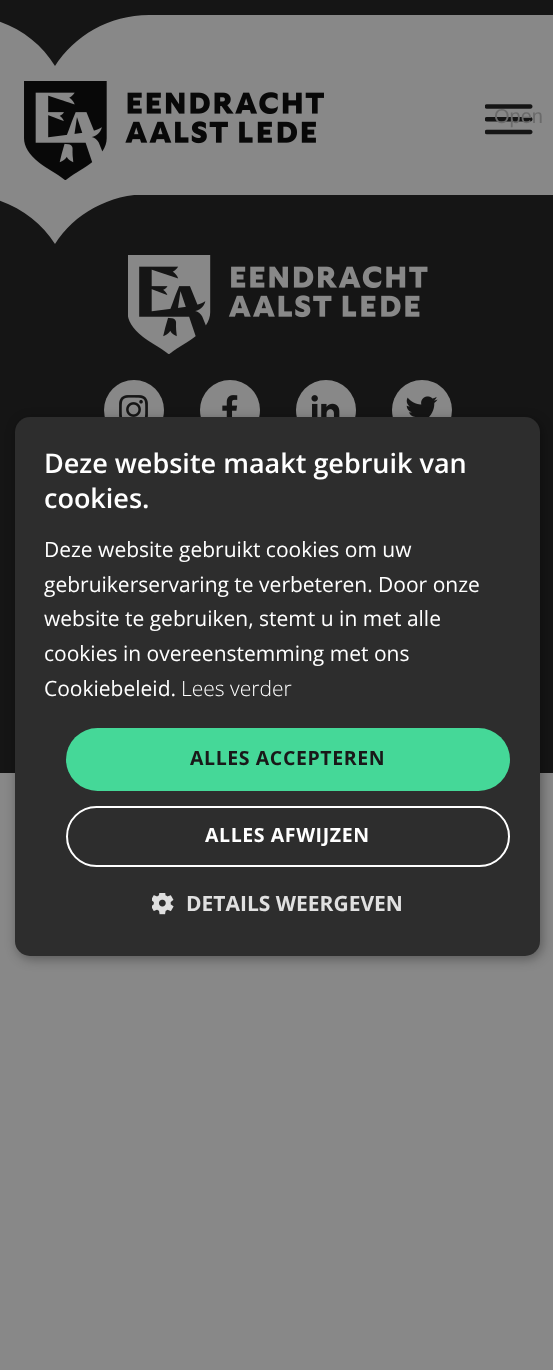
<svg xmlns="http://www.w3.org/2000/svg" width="553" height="1370">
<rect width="100%" height="100%" fill="#888"/>
<rect width="553" height="15" fill="#151515"/>
<path d="M149 15c-40 0-75 21-94 51c-18-30-52-50-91-51z" fill="#151515"/>
<image x="24" y="81" width="300" height="99" href="media/1.png"/>
<image x="485" y="104" width="48" height="31" href="media/2.png"/>
<text x="494" y="123" style="font-family:Liberation Sans;font-size:20px;fill:#6a6a6a">Open</text>
<rect y="195" width="553" height="578" fill="#151515"/>
<path d="M149 194c-40 0-75 20-94 50c-18-29-52-49-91-50z" fill="#888"/>
<image x="128" y="255" width="300" height="99" href="media/3.png"/>
<circle cx="134" cy="410" r="30" fill="#888"/>
<image x="119" y="395" width="29" height="22" href="media/4.png"/>
<circle cx="230" cy="410" r="30" fill="#888"/>
<image x="222" y="395" width="16" height="22" href="media/5.png"/>
<circle cx="326" cy="410" r="30" fill="#888"/>
<image x="311" y="395" width="29" height="22" href="media/6.png"/>
<circle cx="422" cy="410" r="30" fill="#888"/>
<image x="406" y="396" width="32" height="21" href="media/7.png"/>
<rect x="17" y="420" width="525" height="539" rx="15" fill="#00000059" filter="blur(6px)"/>
<rect x="15" y="417" width="525" height="539" rx="15" fill="#2d2d2d"/>
<text x="44" y="473" style="font-family:Open Sans;font-size:27px;font-weight:600;fill:#fff">Deze website maakt gebruik van</text>
<text x="44" y="508" style="font-family:Open Sans;font-size:27px;font-weight:600;fill:#fff">cookies.</text>
<text x="44" y="557" style="font-family:Open Sans;font-size:21px;fill:#fff">Deze website gebruikt cookies om uw</text>
<text x="44" y="592" style="font-family:Open Sans;font-size:21px;fill:#fff">gebruikerservaring te verbeteren. Door onze</text>
<text x="44" y="626" style="font-family:Open Sans;font-size:21px;fill:#fff">website te gebruiken, stemt u in met alle</text>
<text x="44" y="661" style="font-family:Open Sans;font-size:21px;fill:#fff">cookies in overeenstemming met ons</text>
<text x="44" y="696" style="font-family:Open Sans;font-size:21px;fill:#fff">Cookiebeleid.</text>
<text x="181" y="696" style="font-family:Open Sans;font-size:21px;font-weight:300;fill:#fff">Lees verder</text>
<rect x="66" y="728" width="444" height="63" rx="31.5" fill="#45d898"/>
<text x="190" y="765" style="font-family:Open Sans;font-size:19.5px;font-weight:bold;letter-spacing:0.6px;fill:#191919">ALLES ACCEPTEREN</text>
<rect x="67" y="807" width="442" height="59" rx="29.5" fill="none" stroke="#fff" stroke-width="2"/>
<text x="205" y="842" style="font-family:Open Sans;font-size:19.5px;font-weight:bold;letter-spacing:0.6px;fill:#fff">ALLES AFWIJZEN</text>
<image x="152" y="893" width="22" height="22" href="media/8.png"/>
<text x="186" y="911" style="font-family:Open Sans;font-size:21px;font-weight:bold;fill:#e0e0e0">DETAILS WEERGEVEN</text>
</svg>
